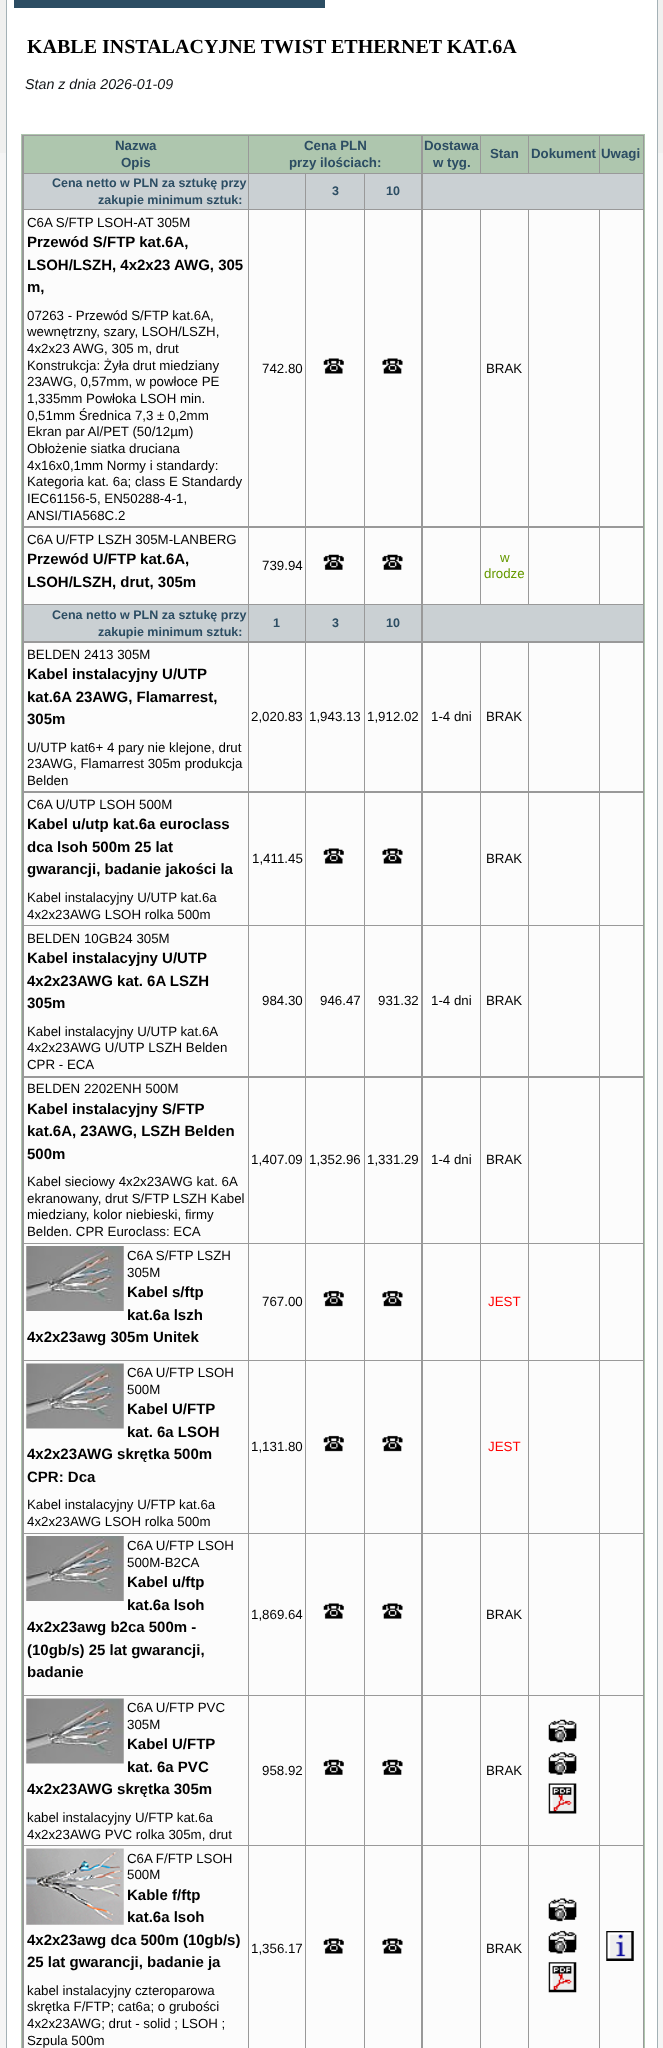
<svg xmlns="http://www.w3.org/2000/svg" width="663" height="2048">
<rect width="100%" height="100%" fill="#f5f5f5"/>
<rect width="663" height="153" fill="#f0f0ef"/>
<rect x="6.5" y="-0.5" width="651" height="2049" fill="#fff" stroke="#a4b1b6"/>
<rect x="14" width="311" height="8" fill="#2c4d63"/>
<text x="27" y="53" style="font-family:Liberation Serif;font-size:20px;font-weight:bold;fill:#000">KABLE INSTALACYJNE TWIST ETHERNET KAT.6A</text>
<text x="25" y="89" style="font-family:Liberation Sans;font-size:14.25px;font-style:italic;fill:#121517">Stan z dnia 2026-01-09</text>
<rect x="21.5" y="134.5" width="623" height="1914" fill="#999" stroke="#aec6ae"/>
<rect x="24" y="136" width="224" height="37" fill="#aec6ae"/>
<text x="115" y="150" style="font-family:Liberation Sans;font-size:13.3px;font-weight:bold;fill:#2c4d63">Nazwa</text>
<text x="121" y="167" style="font-family:Liberation Sans;font-size:13.3px;font-weight:bold;fill:#2c4d63">Opis</text>
<rect x="249" y="136" width="172" height="37" fill="#aec6ae"/>
<text x="304" y="150" style="font-family:Liberation Sans;font-size:13.3px;font-weight:bold;fill:#2c4d63">Cena PLN</text>
<text x="289" y="167" style="font-family:Liberation Sans;font-size:13.3px;font-weight:bold;fill:#2c4d63">przy ilościach:</text>
<rect x="423" y="136" width="57" height="37" fill="#aec6ae"/>
<text x="424" y="150" style="font-family:Liberation Sans;font-size:13.3px;font-weight:bold;fill:#2c4d63">Dostawa</text>
<text x="433" y="167" style="font-family:Liberation Sans;font-size:13.3px;font-weight:bold;fill:#2c4d63">w tyg.</text>
<rect x="481" y="136" width="47" height="37" fill="#aec6ae"/>
<text x="490" y="158" style="font-family:Liberation Sans;font-size:13.3px;font-weight:bold;fill:#2c4d63">Stan</text>
<rect x="529" y="136" width="70" height="37" fill="#aec6ae"/>
<text x="531" y="158" style="font-family:Liberation Sans;font-size:13.3px;font-weight:bold;fill:#2c4d63">Dokument</text>
<rect x="600" y="136" width="43" height="37" fill="#aec6ae"/>
<text x="601" y="158" style="font-family:Liberation Sans;font-size:13.3px;font-weight:bold;fill:#2c4d63">Uwagi</text>
<rect x="24" y="174" width="224" height="35" fill="#cad0d3"/>
<text x="52" y="187" style="font-family:Liberation Sans;font-size:12.5px;font-weight:bold;fill:#2c4d63">Cena netto w PLN za sztukę przy</text>
<text x="98" y="204" style="font-family:Liberation Sans;font-size:12.5px;font-weight:bold;fill:#2c4d63">zakupie minimum sztuk:</text>
<rect x="249" y="174" width="56" height="35" fill="#cad0d3"/>
<rect x="306" y="174" width="58" height="35" fill="#cad0d3"/>
<text x="332" y="195" style="font-family:Liberation Sans;font-size:12.5px;font-weight:bold;fill:#2c4d63">3</text>
<rect x="365" y="174" width="56" height="35" fill="#cad0d3"/>
<text x="386" y="195" style="font-family:Liberation Sans;font-size:12.5px;font-weight:bold;fill:#2c4d63">10</text>
<rect x="423" y="174" width="220" height="35" fill="#cad0d3"/>
<rect x="24" y="210" width="224" height="316" fill="#fcfcfc"/>
<text x="27" y="227" style="font-family:Liberation Sans;font-size:13.3px;fill:#000">C6A S/FTP LSOH-AT 305M</text>
<text x="27" y="247" style="font-family:Liberation Sans;font-size:15px;font-weight:bold;fill:#000">Przewód S/FTP kat.6A,</text>
<text x="27" y="270" style="font-family:Liberation Sans;font-size:15px;font-weight:bold;fill:#000">LSOH/LSZH, 4x2x23 AWG, 305</text>
<text x="27" y="292" style="font-family:Liberation Sans;font-size:15px;font-weight:bold;fill:#000">m,</text>
<text x="27" y="320" style="font-family:Liberation Sans;font-size:13.3px;fill:#000">07263 - Przewód S/FTP kat.6A,</text>
<text x="27" y="336" style="font-family:Liberation Sans;font-size:13.3px;fill:#000">wewnętrzny, szary, LSOH/LSZH,</text>
<text x="27" y="353" style="font-family:Liberation Sans;font-size:13.3px;fill:#000">4x2x23 AWG, 305 m, drut</text>
<text x="27" y="370" style="font-family:Liberation Sans;font-size:13.3px;fill:#000">Konstrukcja: Żyła drut miedziany</text>
<text x="27" y="386" style="font-family:Liberation Sans;font-size:13.3px;fill:#000">23AWG, 0,57mm, w powłoce PE</text>
<text x="27" y="403" style="font-family:Liberation Sans;font-size:13.3px;fill:#000">1,335mm Powłoka LSOH min.</text>
<text x="27" y="420" style="font-family:Liberation Sans;font-size:13.3px;fill:#000">0,51mm Średnica 7,3 ± 0,2mm</text>
<text x="27" y="436" style="font-family:Liberation Sans;font-size:13.3px;fill:#000">Ekran par Al/PET (50/12µm)</text>
<text x="27" y="453" style="font-family:Liberation Sans;font-size:13.3px;fill:#000">Obłożenie siatka druciana</text>
<text x="27" y="470" style="font-family:Liberation Sans;font-size:13.3px;fill:#000">4x16x0,1mm Normy i standardy:</text>
<text x="27" y="486" style="font-family:Liberation Sans;font-size:13.3px;fill:#000">Kategoria kat. 6a; class E Standardy</text>
<text x="27" y="503" style="font-family:Liberation Sans;font-size:13.3px;fill:#000">IEC61156-5, EN50288-4-1,</text>
<text x="27" y="520" style="font-family:Liberation Sans;font-size:13.3px;fill:#000">ANSI/TIA568C.2</text>
<rect x="249" y="210" width="56" height="316" fill="#fcfcfc"/>
<text x="262" y="373" style="font-family:Liberation Sans;font-size:13.3px;fill:#000">742.80</text>
<rect x="306" y="210" width="58" height="316" fill="#fcfcfc"/>
<image x="323" y="358" width="21" height="16" href="media/1.png"/>
<rect x="365" y="210" width="56" height="316" fill="#fcfcfc"/>
<image x="382" y="358" width="21" height="16" href="media/2.png"/>
<rect x="423" y="210" width="57" height="316" fill="#fcfcfc"/>
<rect x="481" y="210" width="47" height="316" fill="#fcfcfc"/>
<text x="486" y="373" style="font-family:Liberation Sans;font-size:13.3px;fill:#000">BRAK</text>
<rect x="529" y="210" width="70" height="316" fill="#fcfcfc"/>
<rect x="600" y="210" width="43" height="316" fill="#fcfcfc"/>
<rect x="24" y="528" width="224" height="76" fill="#fcfcfc"/>
<text x="27" y="544" style="font-family:Liberation Sans;font-size:13.3px;fill:#000">C6A U/FTP LSZH 305M-LANBERG</text>
<text x="27" y="564" style="font-family:Liberation Sans;font-size:15px;font-weight:bold;fill:#000">Przewód U/FTP kat.6A,</text>
<text x="27" y="587" style="font-family:Liberation Sans;font-size:15px;font-weight:bold;fill:#000">LSOH/LSZH, drut, 305m</text>
<rect x="249" y="528" width="56" height="76" fill="#fcfcfc"/>
<text x="262" y="570" style="font-family:Liberation Sans;font-size:13.3px;fill:#000">739.94</text>
<rect x="306" y="528" width="58" height="76" fill="#fcfcfc"/>
<image x="323" y="554" width="21" height="16" href="media/3.png"/>
<rect x="365" y="528" width="56" height="76" fill="#fcfcfc"/>
<image x="382" y="554" width="21" height="16" href="media/4.png"/>
<rect x="423" y="528" width="57" height="76" fill="#fcfcfc"/>
<rect x="481" y="528" width="47" height="76" fill="#fcfcfc"/>
<text x="500" y="562" style="font-family:Liberation Sans;font-size:13.3px;fill:#690">w</text>
<text x="484" y="578" style="font-family:Liberation Sans;font-size:13.3px;fill:#690">drodze</text>
<rect x="529" y="528" width="70" height="76" fill="#fcfcfc"/>
<rect x="600" y="528" width="43" height="76" fill="#fcfcfc"/>
<rect x="24" y="605" width="224" height="36" fill="#cad0d3"/>
<text x="52" y="619" style="font-family:Liberation Sans;font-size:12.5px;font-weight:bold;fill:#2c4d63">Cena netto w PLN za sztukę przy</text>
<text x="98" y="636" style="font-family:Liberation Sans;font-size:12.5px;font-weight:bold;fill:#2c4d63">zakupie minimum sztuk:</text>
<rect x="249" y="605" width="56" height="36" fill="#cad0d3"/>
<text x="273" y="627" style="font-family:Liberation Sans;font-size:12.5px;font-weight:bold;fill:#2c4d63">1</text>
<rect x="306" y="605" width="58" height="36" fill="#cad0d3"/>
<text x="332" y="627" style="font-family:Liberation Sans;font-size:12.5px;font-weight:bold;fill:#2c4d63">3</text>
<rect x="365" y="605" width="56" height="36" fill="#cad0d3"/>
<text x="386" y="627" style="font-family:Liberation Sans;font-size:12.5px;font-weight:bold;fill:#2c4d63">10</text>
<rect x="423" y="605" width="220" height="36" fill="#cad0d3"/>
<rect x="24" y="643" width="224" height="148" fill="#fcfcfc"/>
<text x="27" y="659" style="font-family:Liberation Sans;font-size:13.3px;fill:#000">BELDEN 2413 305M</text>
<text x="27" y="679" style="font-family:Liberation Sans;font-size:15px;font-weight:bold;fill:#000">Kabel instalacyjny U/UTP</text>
<text x="27" y="702" style="font-family:Liberation Sans;font-size:15px;font-weight:bold;fill:#000">kat.6A 23AWG, Flamarrest,</text>
<text x="27" y="724" style="font-family:Liberation Sans;font-size:15px;font-weight:bold;fill:#000">305m</text>
<text x="27" y="752" style="font-family:Liberation Sans;font-size:13.3px;fill:#000">U/UTP kat6+ 4 pary nie klejone, drut</text>
<text x="27" y="768" style="font-family:Liberation Sans;font-size:13.3px;fill:#000">23AWG, Flamarrest 305m produkcja</text>
<text x="27" y="785" style="font-family:Liberation Sans;font-size:13.3px;fill:#000">Belden</text>
<rect x="249" y="643" width="56" height="148" fill="#fcfcfc"/>
<text x="251" y="721" style="font-family:Liberation Sans;font-size:13.3px;fill:#000">2,020.83</text>
<rect x="306" y="643" width="58" height="148" fill="#fcfcfc"/>
<text x="309" y="721" style="font-family:Liberation Sans;font-size:13.3px;fill:#000">1,943.13</text>
<rect x="365" y="643" width="56" height="148" fill="#fcfcfc"/>
<text x="367" y="721" style="font-family:Liberation Sans;font-size:13.3px;fill:#000">1,912.02</text>
<rect x="423" y="643" width="57" height="148" fill="#fcfcfc"/>
<text x="431" y="721" style="font-family:Liberation Sans;font-size:13.3px;fill:#000">1-4 dni</text>
<rect x="481" y="643" width="47" height="148" fill="#fcfcfc"/>
<text x="486" y="721" style="font-family:Liberation Sans;font-size:13.3px;fill:#000">BRAK</text>
<rect x="529" y="643" width="70" height="148" fill="#fcfcfc"/>
<rect x="600" y="643" width="43" height="148" fill="#fcfcfc"/>
<rect x="24" y="793" width="224" height="132" fill="#fcfcfc"/>
<text x="27" y="809" style="font-family:Liberation Sans;font-size:13.3px;fill:#000">C6A U/UTP LSOH 500M</text>
<text x="27" y="829" style="font-family:Liberation Sans;font-size:15px;font-weight:bold;fill:#000">Kabel u/utp kat.6a euroclass</text>
<text x="27" y="852" style="font-family:Liberation Sans;font-size:15px;font-weight:bold;fill:#000">dca lsoh 500m 25 lat</text>
<text x="27" y="874" style="font-family:Liberation Sans;font-size:15px;font-weight:bold;fill:#000">gwarancji, badanie jakości la</text>
<text x="27" y="902" style="font-family:Liberation Sans;font-size:13.3px;fill:#000">Kabel instalacyjny U/UTP kat.6a</text>
<text x="27" y="919" style="font-family:Liberation Sans;font-size:13.3px;fill:#000">4x2x23AWG LSOH rolka 500m</text>
<rect x="249" y="793" width="56" height="132" fill="#fcfcfc"/>
<text x="252" y="863" style="font-family:Liberation Sans;font-size:13.3px;fill:#000">1,411.45</text>
<rect x="306" y="793" width="58" height="132" fill="#fcfcfc"/>
<image x="323" y="848" width="21" height="16" href="media/1.png"/>
<rect x="365" y="793" width="56" height="132" fill="#fcfcfc"/>
<image x="382" y="848" width="21" height="16" href="media/2.png"/>
<rect x="423" y="793" width="57" height="132" fill="#fcfcfc"/>
<rect x="481" y="793" width="47" height="132" fill="#fcfcfc"/>
<text x="486" y="863" style="font-family:Liberation Sans;font-size:13.3px;fill:#000">BRAK</text>
<rect x="529" y="793" width="70" height="132" fill="#fcfcfc"/>
<rect x="600" y="793" width="43" height="132" fill="#fcfcfc"/>
<rect x="24" y="926" width="224" height="150" fill="#fcfcfc"/>
<text x="27" y="943" style="font-family:Liberation Sans;font-size:13.3px;fill:#000">BELDEN 10GB24 305M</text>
<text x="27" y="963" style="font-family:Liberation Sans;font-size:15px;font-weight:bold;fill:#000">Kabel instalacyjny U/UTP</text>
<text x="27" y="986" style="font-family:Liberation Sans;font-size:15px;font-weight:bold;fill:#000">4x2x23AWG kat. 6A LSZH</text>
<text x="27" y="1008" style="font-family:Liberation Sans;font-size:15px;font-weight:bold;fill:#000">305m</text>
<text x="27" y="1036" style="font-family:Liberation Sans;font-size:13.3px;fill:#000">Kabel instalacyjny U/UTP kat.6A</text>
<text x="27" y="1052" style="font-family:Liberation Sans;font-size:13.3px;fill:#000">4x2x23AWG U/UTP LSZH Belden</text>
<text x="27" y="1069" style="font-family:Liberation Sans;font-size:13.3px;fill:#000">CPR - ECA</text>
<rect x="249" y="926" width="56" height="150" fill="#fcfcfc"/>
<text x="262" y="1005" style="font-family:Liberation Sans;font-size:13.3px;fill:#000">984.30</text>
<rect x="306" y="926" width="58" height="150" fill="#fcfcfc"/>
<text x="320" y="1005" style="font-family:Liberation Sans;font-size:13.3px;fill:#000">946.47</text>
<rect x="365" y="926" width="56" height="150" fill="#fcfcfc"/>
<text x="378" y="1005" style="font-family:Liberation Sans;font-size:13.3px;fill:#000">931.32</text>
<rect x="423" y="926" width="57" height="150" fill="#fcfcfc"/>
<text x="431" y="1005" style="font-family:Liberation Sans;font-size:13.3px;fill:#000">1-4 dni</text>
<rect x="481" y="926" width="47" height="150" fill="#fcfcfc"/>
<text x="486" y="1005" style="font-family:Liberation Sans;font-size:13.3px;fill:#000">BRAK</text>
<rect x="529" y="926" width="70" height="150" fill="#fcfcfc"/>
<rect x="600" y="926" width="43" height="150" fill="#fcfcfc"/>
<rect x="24" y="1078" width="224" height="165" fill="#fcfcfc"/>
<text x="27" y="1093" style="font-family:Liberation Sans;font-size:13.3px;fill:#000">BELDEN 2202ENH 500M</text>
<text x="27" y="1114" style="font-family:Liberation Sans;font-size:15px;font-weight:bold;fill:#000">Kabel instalacyjny S/FTP</text>
<text x="27" y="1136" style="font-family:Liberation Sans;font-size:15px;font-weight:bold;fill:#000">kat.6A, 23AWG, LSZH Belden</text>
<text x="27" y="1159" style="font-family:Liberation Sans;font-size:15px;font-weight:bold;fill:#000">500m</text>
<text x="27" y="1186" style="font-family:Liberation Sans;font-size:13.3px;fill:#000">Kabel sieciowy 4x2x23AWG kat. 6A</text>
<text x="27" y="1203" style="font-family:Liberation Sans;font-size:13.3px;fill:#000">ekranowany, drut S/FTP LSZH Kabel</text>
<text x="27" y="1219" style="font-family:Liberation Sans;font-size:13.3px;fill:#000">miedziany, kolor niebieski, firmy</text>
<text x="27" y="1236" style="font-family:Liberation Sans;font-size:13.3px;fill:#000">Belden. CPR Euroclass: ECA</text>
<rect x="249" y="1078" width="56" height="165" fill="#fcfcfc"/>
<text x="251" y="1164" style="font-family:Liberation Sans;font-size:13.3px;fill:#000">1,407.09</text>
<rect x="306" y="1078" width="58" height="165" fill="#fcfcfc"/>
<text x="309" y="1164" style="font-family:Liberation Sans;font-size:13.3px;fill:#000">1,352.96</text>
<rect x="365" y="1078" width="56" height="165" fill="#fcfcfc"/>
<text x="367" y="1164" style="font-family:Liberation Sans;font-size:13.3px;fill:#000">1,331.29</text>
<rect x="423" y="1078" width="57" height="165" fill="#fcfcfc"/>
<text x="431" y="1164" style="font-family:Liberation Sans;font-size:13.3px;fill:#000">1-4 dni</text>
<rect x="481" y="1078" width="47" height="165" fill="#fcfcfc"/>
<text x="486" y="1164" style="font-family:Liberation Sans;font-size:13.3px;fill:#000">BRAK</text>
<rect x="529" y="1078" width="70" height="165" fill="#fcfcfc"/>
<rect x="600" y="1078" width="43" height="165" fill="#fcfcfc"/>
<rect x="24" y="1244" width="224" height="116" fill="#fcfcfc"/>
<image x="26" y="1246" width="98" height="65" href="media/5.png"/>
<text x="127" y="1260" style="font-family:Liberation Sans;font-size:13.3px;fill:#000">C6A S/FTP LSZH</text>
<text x="127" y="1277" style="font-family:Liberation Sans;font-size:13.3px;fill:#000">305M</text>
<text x="127" y="1297" style="font-family:Liberation Sans;font-size:15px;font-weight:bold;fill:#000">Kabel s/ftp</text>
<text x="127" y="1320" style="font-family:Liberation Sans;font-size:15px;font-weight:bold;fill:#000">kat.6a lszh</text>
<text x="27" y="1342" style="font-family:Liberation Sans;font-size:15px;font-weight:bold;fill:#000">4x2x23awg 305m Unitek</text>
<rect x="249" y="1244" width="56" height="116" fill="#fcfcfc"/>
<text x="262" y="1306" style="font-family:Liberation Sans;font-size:13.3px;fill:#000">767.00</text>
<rect x="306" y="1244" width="58" height="116" fill="#fcfcfc"/>
<image x="323" y="1290" width="21" height="17" href="media/6.png"/>
<rect x="365" y="1244" width="56" height="116" fill="#fcfcfc"/>
<image x="382" y="1290" width="21" height="17" href="media/7.png"/>
<rect x="423" y="1244" width="57" height="116" fill="#fcfcfc"/>
<rect x="481" y="1244" width="47" height="116" fill="#fcfcfc"/>
<text x="488" y="1306" style="font-family:Liberation Sans;font-size:13.3px;fill:#f00">JEST</text>
<rect x="529" y="1244" width="70" height="116" fill="#fcfcfc"/>
<rect x="600" y="1244" width="43" height="116" fill="#fcfcfc"/>
<rect x="24" y="1361" width="224" height="172" fill="#fcfcfc"/>
<image x="26" y="1363" width="98" height="66" href="media/8.png"/>
<text x="127" y="1377" style="font-family:Liberation Sans;font-size:13.3px;fill:#000">C6A U/FTP LSOH</text>
<text x="127" y="1394" style="font-family:Liberation Sans;font-size:13.3px;fill:#000">500M</text>
<text x="127" y="1414" style="font-family:Liberation Sans;font-size:15px;font-weight:bold;fill:#000">Kabel U/FTP</text>
<text x="127" y="1437" style="font-family:Liberation Sans;font-size:15px;font-weight:bold;fill:#000">kat. 6a LSOH</text>
<text x="27" y="1459" style="font-family:Liberation Sans;font-size:15px;font-weight:bold;fill:#000">4x2x23AWG skrętka 500m</text>
<text x="27" y="1482" style="font-family:Liberation Sans;font-size:15px;font-weight:bold;fill:#000">CPR: Dca</text>
<text x="27" y="1509" style="font-family:Liberation Sans;font-size:13.3px;fill:#000">Kabel instalacyjny U/FTP kat.6a</text>
<text x="27" y="1526" style="font-family:Liberation Sans;font-size:13.3px;fill:#000">4x2x23AWG LSOH rolka 500m</text>
<rect x="249" y="1361" width="56" height="172" fill="#fcfcfc"/>
<text x="251" y="1451" style="font-family:Liberation Sans;font-size:13.3px;fill:#000">1,131.80</text>
<rect x="306" y="1361" width="58" height="172" fill="#fcfcfc"/>
<image x="323" y="1435" width="21" height="17" href="media/6.png"/>
<rect x="365" y="1361" width="56" height="172" fill="#fcfcfc"/>
<image x="382" y="1435" width="21" height="17" href="media/7.png"/>
<rect x="423" y="1361" width="57" height="172" fill="#fcfcfc"/>
<rect x="481" y="1361" width="47" height="172" fill="#fcfcfc"/>
<text x="488" y="1451" style="font-family:Liberation Sans;font-size:13.3px;fill:#f00">JEST</text>
<rect x="529" y="1361" width="70" height="172" fill="#fcfcfc"/>
<rect x="600" y="1361" width="43" height="172" fill="#fcfcfc"/>
<rect x="24" y="1534" width="224" height="161" fill="#fcfcfc"/>
<image x="26" y="1536" width="98" height="65" href="media/9.png"/>
<text x="127" y="1550" style="font-family:Liberation Sans;font-size:13.3px;fill:#000">C6A U/FTP LSOH</text>
<text x="127" y="1567" style="font-family:Liberation Sans;font-size:13.3px;fill:#000">500M-B2CA</text>
<text x="127" y="1587" style="font-family:Liberation Sans;font-size:15px;font-weight:bold;fill:#000">Kabel u/ftp</text>
<text x="127" y="1610" style="font-family:Liberation Sans;font-size:15px;font-weight:bold;fill:#000">kat.6a lsoh</text>
<text x="27" y="1632" style="font-family:Liberation Sans;font-size:15px;font-weight:bold;fill:#000">4x2x23awg b2ca 500m -</text>
<text x="27" y="1655" style="font-family:Liberation Sans;font-size:15px;font-weight:bold;fill:#000">(10gb/s) 25 lat gwarancji,</text>
<text x="27" y="1677" style="font-family:Liberation Sans;font-size:15px;font-weight:bold;fill:#000">badanie</text>
<rect x="249" y="1534" width="56" height="161" fill="#fcfcfc"/>
<text x="251" y="1619" style="font-family:Liberation Sans;font-size:13.3px;fill:#000">1,869.64</text>
<rect x="306" y="1534" width="58" height="161" fill="#fcfcfc"/>
<image x="323" y="1603" width="21" height="16" href="media/10.png"/>
<rect x="365" y="1534" width="56" height="161" fill="#fcfcfc"/>
<image x="382" y="1603" width="21" height="16" href="media/11.png"/>
<rect x="423" y="1534" width="57" height="161" fill="#fcfcfc"/>
<rect x="481" y="1534" width="47" height="161" fill="#fcfcfc"/>
<text x="486" y="1619" style="font-family:Liberation Sans;font-size:13.3px;fill:#000">BRAK</text>
<rect x="529" y="1534" width="70" height="161" fill="#fcfcfc"/>
<rect x="600" y="1534" width="43" height="161" fill="#fcfcfc"/>
<rect x="24" y="1696" width="224" height="149" fill="#fcfcfc"/>
<image x="26" y="1698" width="98" height="66" href="media/8.png"/>
<text x="127" y="1712" style="font-family:Liberation Sans;font-size:13.3px;fill:#000">C6A U/FTP PVC</text>
<text x="127" y="1729" style="font-family:Liberation Sans;font-size:13.3px;fill:#000">305M</text>
<text x="127" y="1749" style="font-family:Liberation Sans;font-size:15px;font-weight:bold;fill:#000">Kabel U/FTP</text>
<text x="127" y="1772" style="font-family:Liberation Sans;font-size:15px;font-weight:bold;fill:#000">kat. 6a PVC</text>
<text x="27" y="1794" style="font-family:Liberation Sans;font-size:15px;font-weight:bold;fill:#000">4x2x23AWG skrętka 305m</text>
<text x="27" y="1822" style="font-family:Liberation Sans;font-size:13.3px;fill:#000">kabel instalacyjny U/FTP kat.6a</text>
<text x="27" y="1839" style="font-family:Liberation Sans;font-size:13.3px;fill:#000">4x2x23AWG PVC rolka 305m, drut</text>
<rect x="249" y="1696" width="56" height="149" fill="#fcfcfc"/>
<text x="262" y="1775" style="font-family:Liberation Sans;font-size:13.3px;fill:#000">958.92</text>
<rect x="306" y="1696" width="58" height="149" fill="#fcfcfc"/>
<image x="323" y="1759" width="21" height="16" href="media/3.png"/>
<rect x="365" y="1696" width="56" height="149" fill="#fcfcfc"/>
<image x="382" y="1759" width="21" height="16" href="media/4.png"/>
<rect x="423" y="1696" width="57" height="149" fill="#fcfcfc"/>
<rect x="481" y="1696" width="47" height="149" fill="#fcfcfc"/>
<text x="486" y="1775" style="font-family:Liberation Sans;font-size:13.3px;fill:#000">BRAK</text>
<rect x="529" y="1696" width="70" height="149" fill="#fcfcfc"/>
<image x="548" y="1719" width="29" height="24" href="media/12.png"/>
<image x="548" y="1752" width="29" height="23" href="media/13.png"/>
<image x="548" y="1783" width="29" height="31" href="media/14.png"/>
<rect x="600" y="1696" width="43" height="149" fill="#fcfcfc"/>
<rect x="24" y="1846" width="224" height="202" fill="#fcfcfc"/>
<image x="26" y="1848" width="98" height="77" href="media/15.png"/>
<text x="127" y="1863" style="font-family:Liberation Sans;font-size:13.3px;fill:#000">C6A F/FTP LSOH</text>
<text x="127" y="1879" style="font-family:Liberation Sans;font-size:13.3px;fill:#000">500M</text>
<text x="127" y="1900" style="font-family:Liberation Sans;font-size:15px;font-weight:bold;fill:#000">Kable f/ftp</text>
<text x="127" y="1922" style="font-family:Liberation Sans;font-size:15px;font-weight:bold;fill:#000">kat.6a lsoh</text>
<text x="27" y="1945" style="font-family:Liberation Sans;font-size:15px;font-weight:bold;fill:#000">4x2x23awg dca 500m (10gb/s)</text>
<text x="27" y="1967" style="font-family:Liberation Sans;font-size:15px;font-weight:bold;fill:#000">25 lat gwarancji, badanie ja</text>
<text x="27" y="1995" style="font-family:Liberation Sans;font-size:13.3px;fill:#000">kabel instalacyjny czteroparowa</text>
<text x="27" y="2011" style="font-family:Liberation Sans;font-size:13.3px;fill:#000">skrętka F/FTP; cat6a; o grubości</text>
<text x="27" y="2028" style="font-family:Liberation Sans;font-size:13.3px;fill:#000">4x2x23AWG; drut - solid ; LSOH ;</text>
<text x="27" y="2045" style="font-family:Liberation Sans;font-size:13.3px;fill:#000">Szpula 500m</text>
<rect x="249" y="1846" width="56" height="202" fill="#fcfcfc"/>
<text x="251" y="1953" style="font-family:Liberation Sans;font-size:13.3px;fill:#000">1,356.17</text>
<rect x="306" y="1846" width="58" height="202" fill="#fcfcfc"/>
<image x="323" y="1938" width="21" height="16" href="media/1.png"/>
<rect x="365" y="1846" width="56" height="202" fill="#fcfcfc"/>
<image x="382" y="1938" width="21" height="16" href="media/2.png"/>
<rect x="423" y="1846" width="57" height="202" fill="#fcfcfc"/>
<rect x="481" y="1846" width="47" height="202" fill="#fcfcfc"/>
<text x="486" y="1953" style="font-family:Liberation Sans;font-size:13.3px;fill:#000">BRAK</text>
<rect x="529" y="1846" width="70" height="202" fill="#fcfcfc"/>
<image x="548" y="1898" width="29" height="24" href="media/16.png"/>
<image x="548" y="1930" width="29" height="24" href="media/17.png"/>
<image x="548" y="1962" width="29" height="31" href="media/18.png"/>
<rect x="600" y="1846" width="43" height="202" fill="#fcfcfc"/>
<image x="606" y="1931" width="28" height="30" href="media/19.png"/>
</svg>
